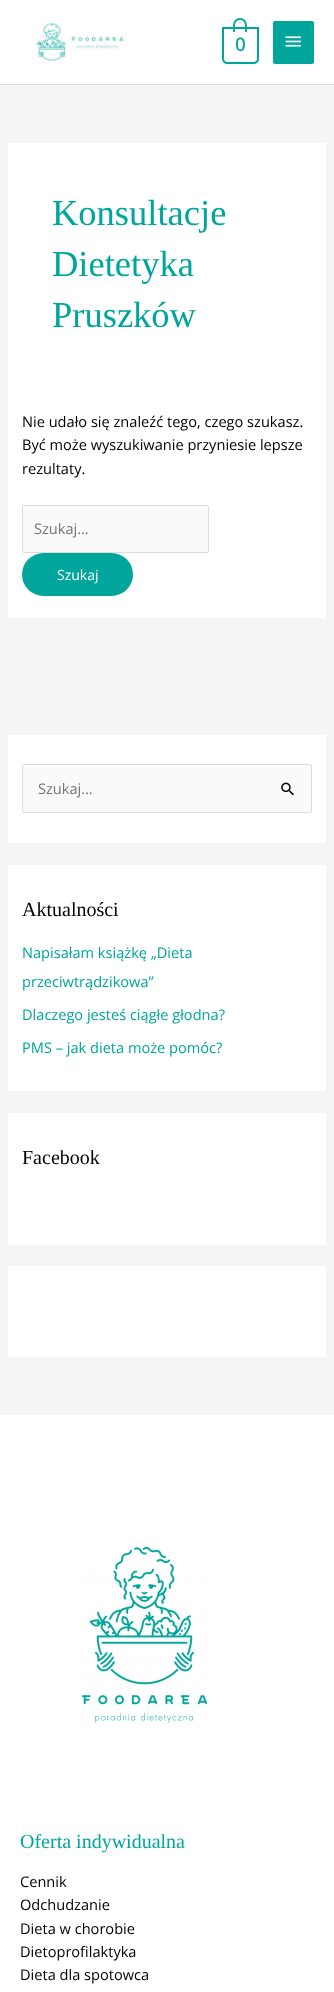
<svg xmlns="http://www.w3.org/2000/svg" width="334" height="1992">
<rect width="100%" height="100%" fill="#f5f5f5"/>
<rect width="334" height="84" fill="#fff"/>
<rect y="84" width="334" height="1" fill="#ddd"/>
<image x="35" y="22" width="89" height="39" href="media/1.png"/>
<path d="M223 28h35v31c0 2-2 4-4 4h-27c-2 0-4-2-4-4z" fill="none" stroke="#00a69c" stroke-width="2"/>
<path d="M240 18c8 0 7 8.5 7 14h-14c0-5.5-1-14 7-14zm0 2c6.5 0 5 8 5 12h-10c0-4-1.5-12 5-12z" fill="#00a69c" fill-rule="evenodd"/>
<text x="235" y="51" style="font-family:Open Sans;font-size:18px;font-weight:bold;fill:#00a69c">0</text>
<rect x="273" y="21" width="41" height="43" rx="2" fill="#00a69c"/>
<image x="285" y="36" width="16" height="11" href="media/2.png"/>
<rect x="8" y="143" width="318" height="475" fill="#fff"/>
<text x="52" y="225" style="font-family:Liberation Serif;font-size:36.5px;fill:#00a69c">Konsultacje</text>
<text x="52" y="276" style="font-family:Liberation Serif;font-size:36.5px;fill:#00a69c">Dietetyka</text>
<text x="52" y="327" style="font-family:Liberation Serif;font-size:36.5px;fill:#00a69c">Pruszków</text>
<text x="22" y="427" style="font-family:Open Sans;font-size:14.6px;fill:#000">Nie udało się znaleźć tego, czego szukasz.</text>
<text x="22" y="450" style="font-family:Open Sans;font-size:14.6px;fill:#000">Być może wyszukiwanie przyniesie lepsze</text>
<text x="22" y="474" style="font-family:Open Sans;font-size:14.6px;fill:#000">rezultaty.</text>
<rect x="22.5" y="505.5" width="186" height="47" rx="1.5" fill="#fafafa" stroke="#ddd"/>
<text x="34" y="534" style="font-family:Open Sans;font-size:14.6px;fill:#757575">Szukaj…</text>
<rect x="22" y="553" width="111" height="43" rx="21.5" fill="#00a69c"/>
<text x="57" y="580" style="font-family:Open Sans;font-size:14px;fill:#fff">Szukaj</text>
<rect x="8" y="735" width="318" height="108" fill="#fff"/>
<rect x="22.5" y="764.5" width="289" height="48" rx="1.5" fill="#fafafa" stroke="#ddd"/>
<text x="38" y="794" style="font-family:Open Sans;font-size:14.6px;fill:#757575">Szukaj…</text>
<image x="281" y="782" width="13" height="14" href="media/3.png"/>
<rect x="8" y="865" width="318" height="226" fill="#fff"/>
<text x="22" y="916" style="font-family:Liberation Serif;font-size:20px;fill:#000">Aktualności</text>
<text x="22" y="958" style="font-family:Open Sans;font-size:14.6px;fill:#00a69c">Napisałam książkę „Dieta</text>
<text x="22" y="987" style="font-family:Open Sans;font-size:14.6px;fill:#00a69c">przeciwtrądzikowa”</text>
<text x="22" y="1020" style="font-family:Open Sans;font-size:14.6px;fill:#00a69c">Dlaczego jesteś ciągłe głodna?</text>
<text x="22" y="1053" style="font-family:Open Sans;font-size:14.6px;fill:#00a69c">PMS – jak dieta może pomóc?</text>
<rect x="8" y="1113" width="318" height="132" fill="#fff"/>
<text x="22" y="1164" style="font-family:Liberation Serif;font-size:20px;fill:#000">Facebook</text>
<rect x="8" y="1266" width="318" height="91" fill="#fff"/>
<rect y="1415" width="334" height="577" fill="#fff"/>
<image x="81" y="1546" width="127" height="177" href="media/4.png"/>
<text x="20" y="1848" style="font-family:Liberation Serif;font-size:20px;fill:#00a69c">Oferta indywidualna</text>
<text x="20" y="1887" style="font-family:Open Sans;font-size:14.6px;fill:#000">Cennik</text>
<text x="20" y="1910" style="font-family:Open Sans;font-size:14.6px;fill:#000">Odchudzanie</text>
<text x="20" y="1934" style="font-family:Open Sans;font-size:14.6px;fill:#000">Dieta w chorobie</text>
<text x="20" y="1957" style="font-family:Open Sans;font-size:14.6px;fill:#000">Dietoprofilaktyka</text>
<text x="20" y="1980" style="font-family:Open Sans;font-size:14.6px;fill:#000">Dieta dla spotowca</text>
</svg>
